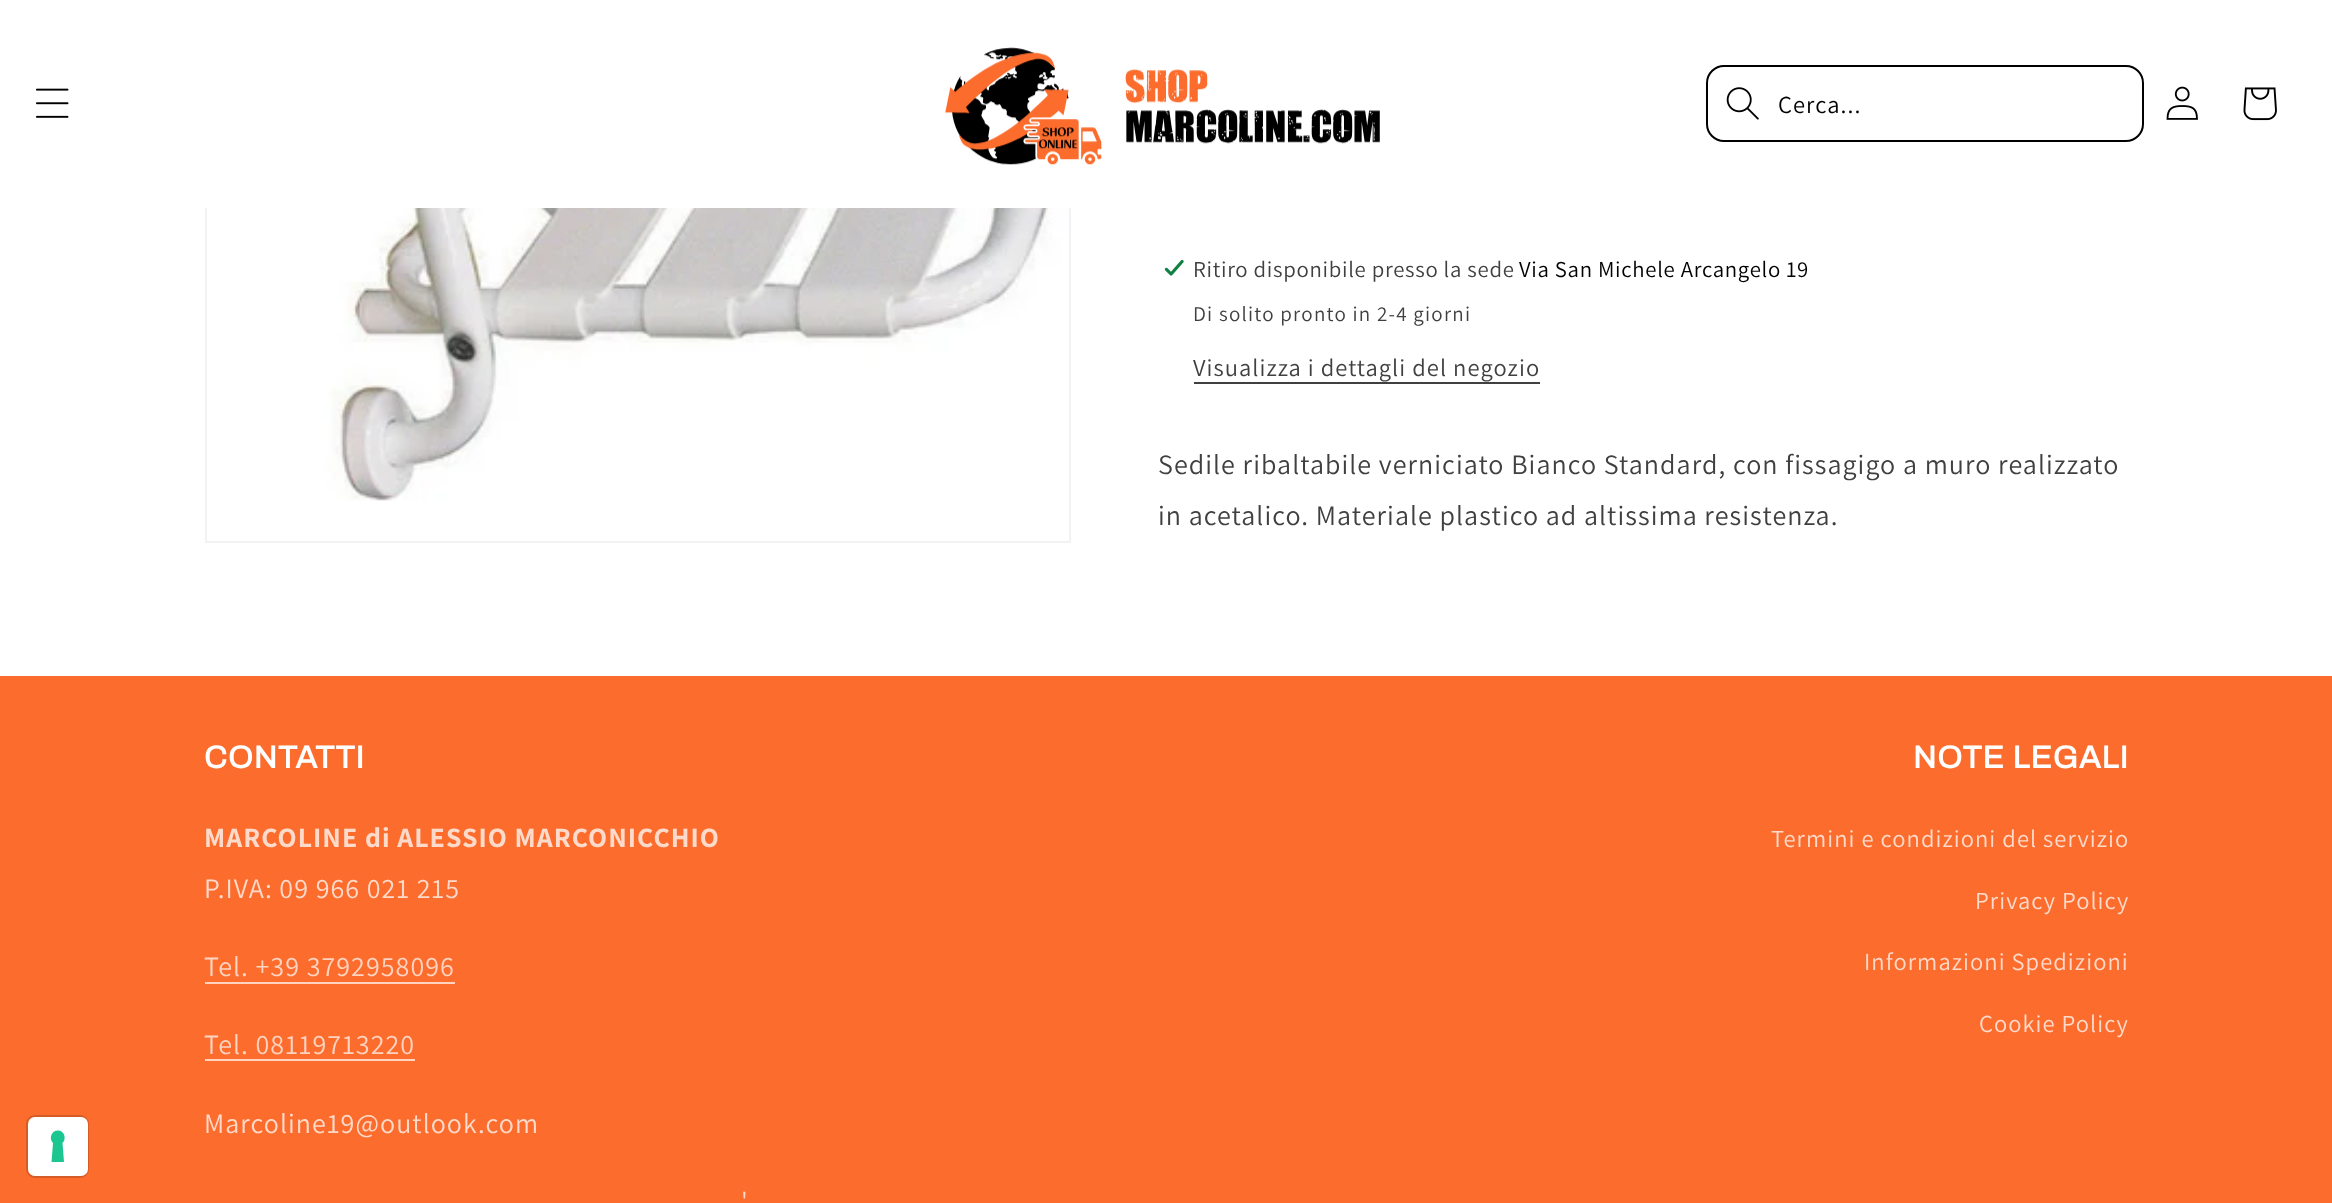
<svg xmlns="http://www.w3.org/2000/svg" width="2332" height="1203">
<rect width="100%" height="100%" fill="#fff"/>
<rect x="206" y="-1" width="864" height="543" fill="none" stroke="#f2f2f2" stroke-width="2"/>
<rect x="205" width="866" height="208" fill="#fff"/>
<image x="36" y="88" width="33" height="30" href="media/1.png"/>
<image x="945" y="47" width="435" height="118" href="media/2.png"/>
<rect x="1707" y="66" width="436" height="75" rx="17" fill="none" stroke="#000" stroke-width="2"/>
<image x="1726" y="87" width="33" height="33" href="media/3.png"/>
<text x="1778" y="113" style="font-family:Assistant;font-size:24.5px;letter-spacing:1.05px;fill:#000">Cerca...</text>
<image x="2166" y="86" width="32" height="34" href="media/4.png"/>
<image x="2243" y="87" width="34" height="34" href="media/5.png"/>
<image x="207" y="208" width="862" height="293" href="media/6.png"/>
<image x="1164" y="259" width="20" height="17" href="media/7.png"/>
<text x="1193" y="277" style="font-family:Assistant;font-size:22.75px;letter-spacing:0.7px;fill:#404040">Ritiro disponibile presso la sede</text>
<text x="1519" y="277" style="font-family:Assistant;font-size:22.75px;letter-spacing:0.7px;fill:#000">Via San Michele Arcangelo 19</text>
<text x="1193" y="321" style="font-family:Assistant;font-size:21px;letter-spacing:1.25px;fill:#404040">Di solito pronto in 2-4 giorni</text>
<text x="1193" y="376" style="font-family:Assistant;font-size:24.5px;letter-spacing:1.05px;fill:#404040">Visualizza i dettagli del negozio</text>
<rect x="1194" y="382" width="346" height="2" fill="#404040"/>
<text x="1158" y="474" style="font-family:Assistant;font-size:28px;letter-spacing:1.05px;fill:#404040">Sedile ribaltabile verniciato Bianco Standard, con fissagigo a muro realizzato</text>
<text x="1158" y="525" style="font-family:Assistant;font-size:28px;letter-spacing:1.05px;fill:#404040">in acetalico. Materiale plastico ad altissima resistenza.</text>
<rect y="676" width="2332" height="527" fill="#fb6c2d"/>
<rect x="27" y="1116" width="61" height="61" rx="8" fill="none" stroke="#d55c26" stroke-width="2"/>
<rect x="28" y="1117" width="60" height="59" rx="7" fill="#fff"/>
<path d="M58 1130.5c6 0 9 8 4.5 12.5l1.5 19h-12.5l1.5-19c-4.5-4.5-1.5-12.5 5-12.5z" fill="#1cc691" fill-rule="evenodd"/>
<text x="204" y="768" style="font-family:Archivo;font-size:31.5px;font-weight:bold;letter-spacing:1.05px;fill:#fff">CONTATTI</text>
<text x="204" y="847" style="font-family:Assistant;font-size:28px;font-weight:bold;letter-spacing:1.05px;fill:#fedacb">MARCOLINE di ALESSIO MARCONICCHIO</text>
<text x="204" y="898" style="font-family:Assistant;font-size:28px;letter-spacing:1.05px;fill:#fedacb">P.IVA: 09 966 021 215</text>
<text x="204" y="976" style="font-family:Assistant;font-size:28px;letter-spacing:1.05px;fill:#fed3c0">Tel. +39 3792958096</text>
<rect x="205" y="982" width="250" height="2" fill="#fed3c0"/>
<text x="204" y="1054" style="font-family:Assistant;font-size:28px;letter-spacing:1.05px;fill:#fed3c0">Tel. 08119713220</text>
<rect x="205" y="1059" width="210" height="2" fill="#fed3c0"/>
<text x="204" y="1133" style="font-family:Assistant;font-size:28px;letter-spacing:1.05px;fill:#fedacb">Marcoline19@outlook.com</text>
<text x="741" y="1211" style="font-family:Assistant;font-size:28px;letter-spacing:1.05px;fill:#fedacb">'</text>
<text x="1913" y="768" style="font-family:Archivo;font-size:31.5px;font-weight:bold;letter-spacing:1.05px;fill:#fff">NOTE LEGALI</text>
<text x="1771" y="847" style="font-family:Assistant;font-size:24.5px;letter-spacing:1.05px;fill:#fedacb">Termini e condizioni del servizio</text>
<text x="1975" y="909" style="font-family:Assistant;font-size:24.5px;letter-spacing:1.05px;fill:#fedacb">Privacy Policy</text>
<text x="1864" y="970" style="font-family:Assistant;font-size:24.5px;letter-spacing:1.05px;fill:#fedacb">Informazioni Spedizioni</text>
<text x="1979" y="1032" style="font-family:Assistant;font-size:24.5px;letter-spacing:1.05px;fill:#fedacb">Cookie Policy</text>
</svg>
